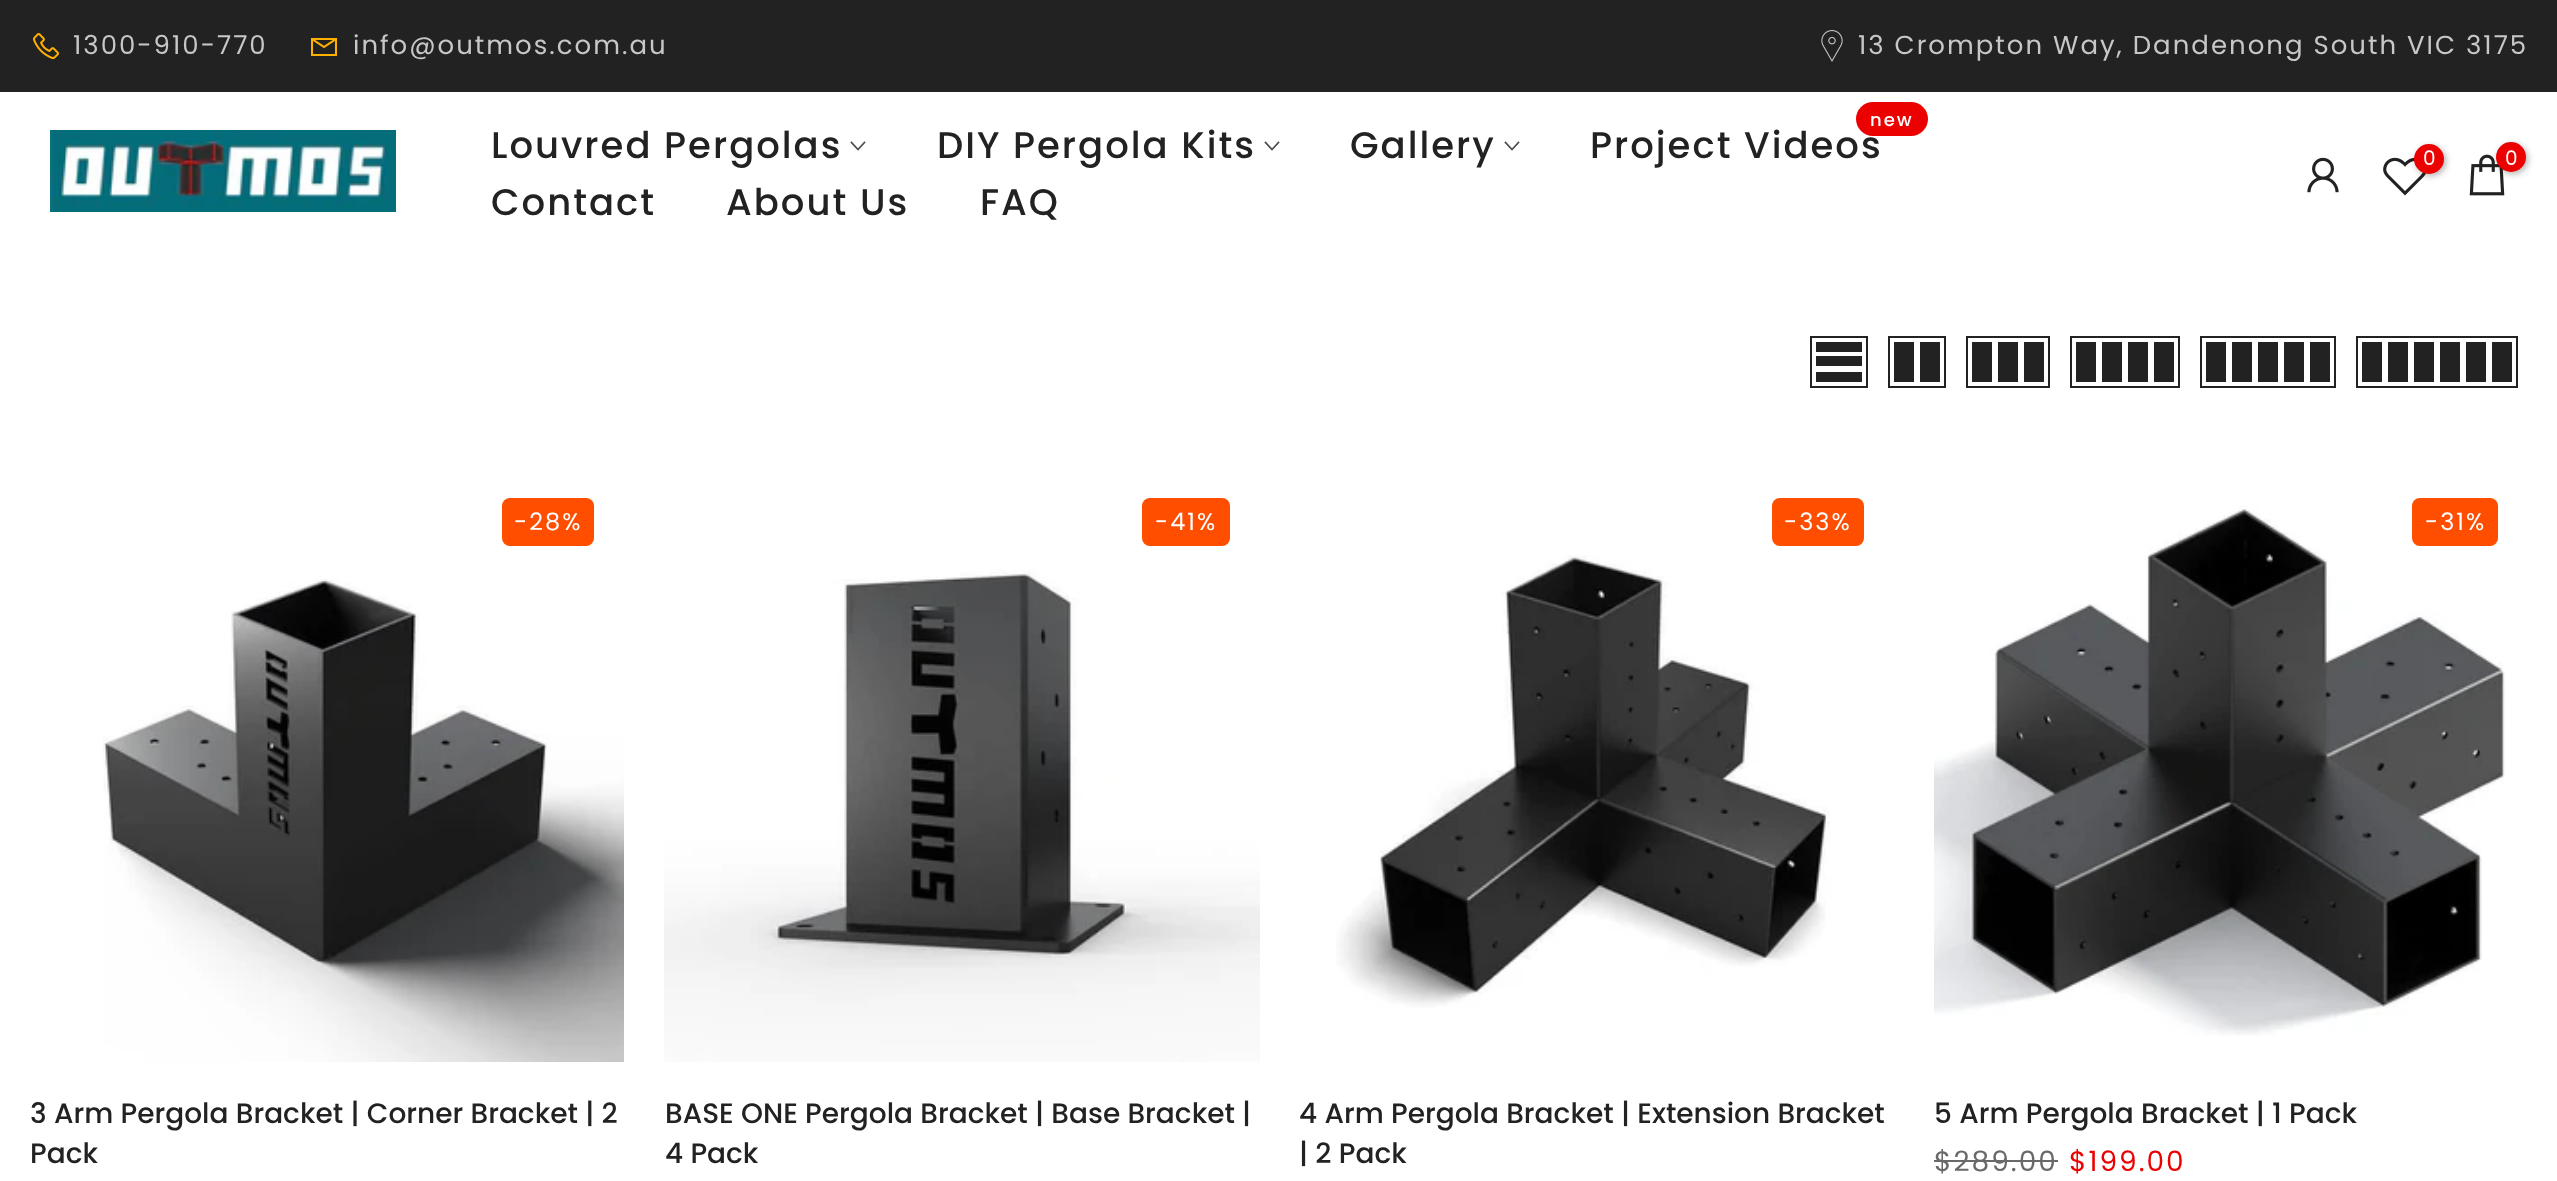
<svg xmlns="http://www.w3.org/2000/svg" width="2557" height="1181">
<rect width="100%" height="100%" fill="#fff"/>
<rect width="2557" height="92" fill="#222"/>
<image x="33" y="33" width="26" height="26" href="media/1.png"/>
<text x="73" y="54" style="font-family:Poppins;font-size:26px;letter-spacing:2px;fill:#c7c7c7">1300-910-770</text>
<image x="311" y="38" width="26" height="18" href="media/2.png"/>
<text x="353" y="54" style="font-family:Poppins;font-size:26px;letter-spacing:2px;fill:#c7c7c7">info@outmos.com.au</text>
<image x="1821" y="30" width="22" height="32" href="media/3.png"/>
<text x="1858" y="54" style="font-family:Poppins;font-size:26px;letter-spacing:2px;fill:#c7c7c7">13 Crompton Way, Dandenong South VIC 3175</text>
<image x="50" y="130" width="346" height="82" href="media/4.png"/>
<text x="491" y="158" style="font-family:Poppins;font-size:37px;font-weight:500;letter-spacing:2px;fill:#222">Louvred Pergolas</text>
<path d="M864.5 142.5l-6.5 7l-6.5-7" fill="none" stroke="#4e4e4e" stroke-width="1.7" stroke-linecap="square"/>
<text x="937" y="158" style="font-family:Poppins;font-size:37px;font-weight:500;letter-spacing:2px;fill:#222">DIY Pergola Kits</text>
<path d="M1278.5 142.5l-6.5 7l-6.5-7" fill="none" stroke="#4e4e4e" stroke-width="1.7" stroke-linecap="square"/>
<text x="1350" y="158" style="font-family:Poppins;font-size:37px;font-weight:500;letter-spacing:2px;fill:#222">Gallery</text>
<path d="M1518.5 142.5l-6.5 7l-6.5-7" fill="none" stroke="#4e4e4e" stroke-width="1.7" stroke-linecap="square"/>
<text x="1590" y="158" style="font-family:Poppins;font-size:37px;font-weight:500;letter-spacing:2px;fill:#222">Project Videos</text>
<rect x="1856" y="102" width="72" height="34" rx="17" fill="#ec0101"/>
<text x="1870" y="126" style="font-family:Poppins;font-size:18px;font-weight:500;letter-spacing:2px;fill:#fff">new</text>
<text x="491" y="215" style="font-family:Poppins;font-size:37px;font-weight:500;letter-spacing:2px;fill:#222">Contact</text>
<text x="726" y="215" style="font-family:Poppins;font-size:37px;font-weight:500;letter-spacing:2px;fill:#222">About Us</text>
<text x="980" y="215" style="font-family:Poppins;font-size:37px;font-weight:500;letter-spacing:2px;fill:#222">FAQ</text>
<image x="2307" y="157" width="32" height="36" href="media/5.png"/>
<image x="2383" y="157" width="43" height="39" href="media/6.png"/>
<rect x="2416" y="146" width="30" height="30" rx="15" fill="#0000004d" filter="blur(3px)"/>
<circle cx="2429" cy="159" r="15" fill="#ec0101"/>
<text x="2423" y="165" style="font-family:Poppins;font-size:20px;fill:#fff">0</text>
<image x="2469" y="154" width="36" height="42" href="media/7.png"/>
<rect x="2498" y="144" width="30" height="30" rx="15" fill="#0000004d" filter="blur(3px)"/>
<circle cx="2511" cy="157" r="15" fill="#ec0101"/>
<text x="2505" y="165" style="font-family:Poppins;font-size:20px;fill:#fff">0</text>
<rect x="1811" y="337" width="56" height="50" fill="none" stroke="#222" stroke-width="2"/>
<rect x="1816" y="372" width="46" height="10" fill="#222"/>
<rect x="1816" y="356" width="46" height="10" fill="#222"/>
<rect x="1816" y="342" width="46" height="10" fill="#222"/>
<rect x="1889" y="337" width="56" height="50" fill="none" stroke="#222" stroke-width="2"/>
<rect x="1920" y="342" width="20" height="40" fill="#222"/>
<rect x="1894" y="342" width="20" height="40" fill="#222"/>
<rect x="1967" y="337" width="82" height="50" fill="none" stroke="#222" stroke-width="2"/>
<rect x="2024" y="342" width="20" height="40" fill="#222"/>
<rect x="1998" y="342" width="20" height="40" fill="#222"/>
<rect x="1972" y="342" width="20" height="40" fill="#222"/>
<rect x="2071" y="337" width="108" height="50" fill="none" stroke="#222" stroke-width="2"/>
<rect x="2154" y="342" width="20" height="40" fill="#222"/>
<rect x="2128" y="342" width="20" height="40" fill="#222"/>
<rect x="2102" y="342" width="20" height="40" fill="#222"/>
<rect x="2076" y="342" width="20" height="40" fill="#222"/>
<rect x="2201" y="337" width="134" height="50" fill="none" stroke="#222" stroke-width="2"/>
<rect x="2310" y="342" width="20" height="40" fill="#222"/>
<rect x="2284" y="342" width="20" height="40" fill="#222"/>
<rect x="2258" y="342" width="20" height="40" fill="#222"/>
<rect x="2232" y="342" width="20" height="40" fill="#222"/>
<rect x="2206" y="342" width="20" height="40" fill="#222"/>
<rect x="2357" y="337" width="160" height="50" fill="none" stroke="#222" stroke-width="2"/>
<rect x="2492" y="342" width="20" height="40" fill="#222"/>
<rect x="2466" y="342" width="20" height="40" fill="#222"/>
<rect x="2440" y="342" width="20" height="40" fill="#222"/>
<rect x="2414" y="342" width="20" height="40" fill="#222"/>
<rect x="2388" y="342" width="20" height="40" fill="#222"/>
<rect x="2362" y="342" width="20" height="40" fill="#222"/>
<rect x="502" y="498" width="92" height="48" rx="8" fill="#ff4e00"/>
<text x="514" y="530" style="font-family:Poppins;font-size:24px;letter-spacing:2px;fill:#fff">-28%</text>
<image x="103" y="579" width="521" height="483" href="media/8.png"/>
<text x="30" y="1123" style="font-family:Poppins;font-size:28px;font-weight:500;fill:#222">3 Arm Pergola Bracket | Corner Bracket | 2</text>
<text x="30" y="1163" style="font-family:Poppins;font-size:28px;font-weight:500;fill:#222">Pack</text>
<rect x="1142" y="498" width="88" height="48" rx="8" fill="#ff4e00"/>
<text x="1155" y="530" style="font-family:Poppins;font-size:24px;letter-spacing:2px;fill:#fff">-41%</text>
<image x="664" y="569" width="596" height="493" href="media/9.png"/>
<text x="665" y="1123" style="font-family:Poppins;font-size:28px;font-weight:500;fill:#222">BASE ONE Pergola Bracket | Base Bracket |</text>
<text x="665" y="1163" style="font-family:Poppins;font-size:28px;font-weight:500;fill:#222">4 Pack</text>
<rect x="1772" y="498" width="92" height="48" rx="8" fill="#ff4e00"/>
<text x="1784" y="530" style="font-family:Poppins;font-size:24px;letter-spacing:2px;fill:#fff">-33%</text>
<image x="1336" y="555" width="494" height="453" href="media/10.png"/>
<text x="1299" y="1123" style="font-family:Poppins;font-size:28px;font-weight:500;fill:#222">4 Arm Pergola Bracket | Extension Bracket</text>
<text x="1299" y="1163" style="font-family:Poppins;font-size:28px;font-weight:500;fill:#222">| 2 Pack</text>
<image x="1934" y="506" width="571" height="530" href="media/11.png"/>
<rect x="2412" y="498" width="86" height="48" rx="8" fill="#ff4e00"/>
<text x="2425" y="530" style="font-family:Poppins;font-size:24px;letter-spacing:2px;fill:#fff">-31%</text>
<text x="1934" y="1123" style="font-family:Poppins;font-size:28px;font-weight:500;fill:#222">5 Arm Pergola Bracket | 1 Pack</text>
<text x="1934" y="1171" style="font-family:Poppins;font-size:28px;letter-spacing:2px;fill:#696969">$289.00</text>
<rect x="1934" y="1160" width="124" height="2" fill="#696969"/>
<text x="2069" y="1171" style="font-family:Poppins;font-size:28px;letter-spacing:2px;fill:#ec0101">$199.00</text>
</svg>
